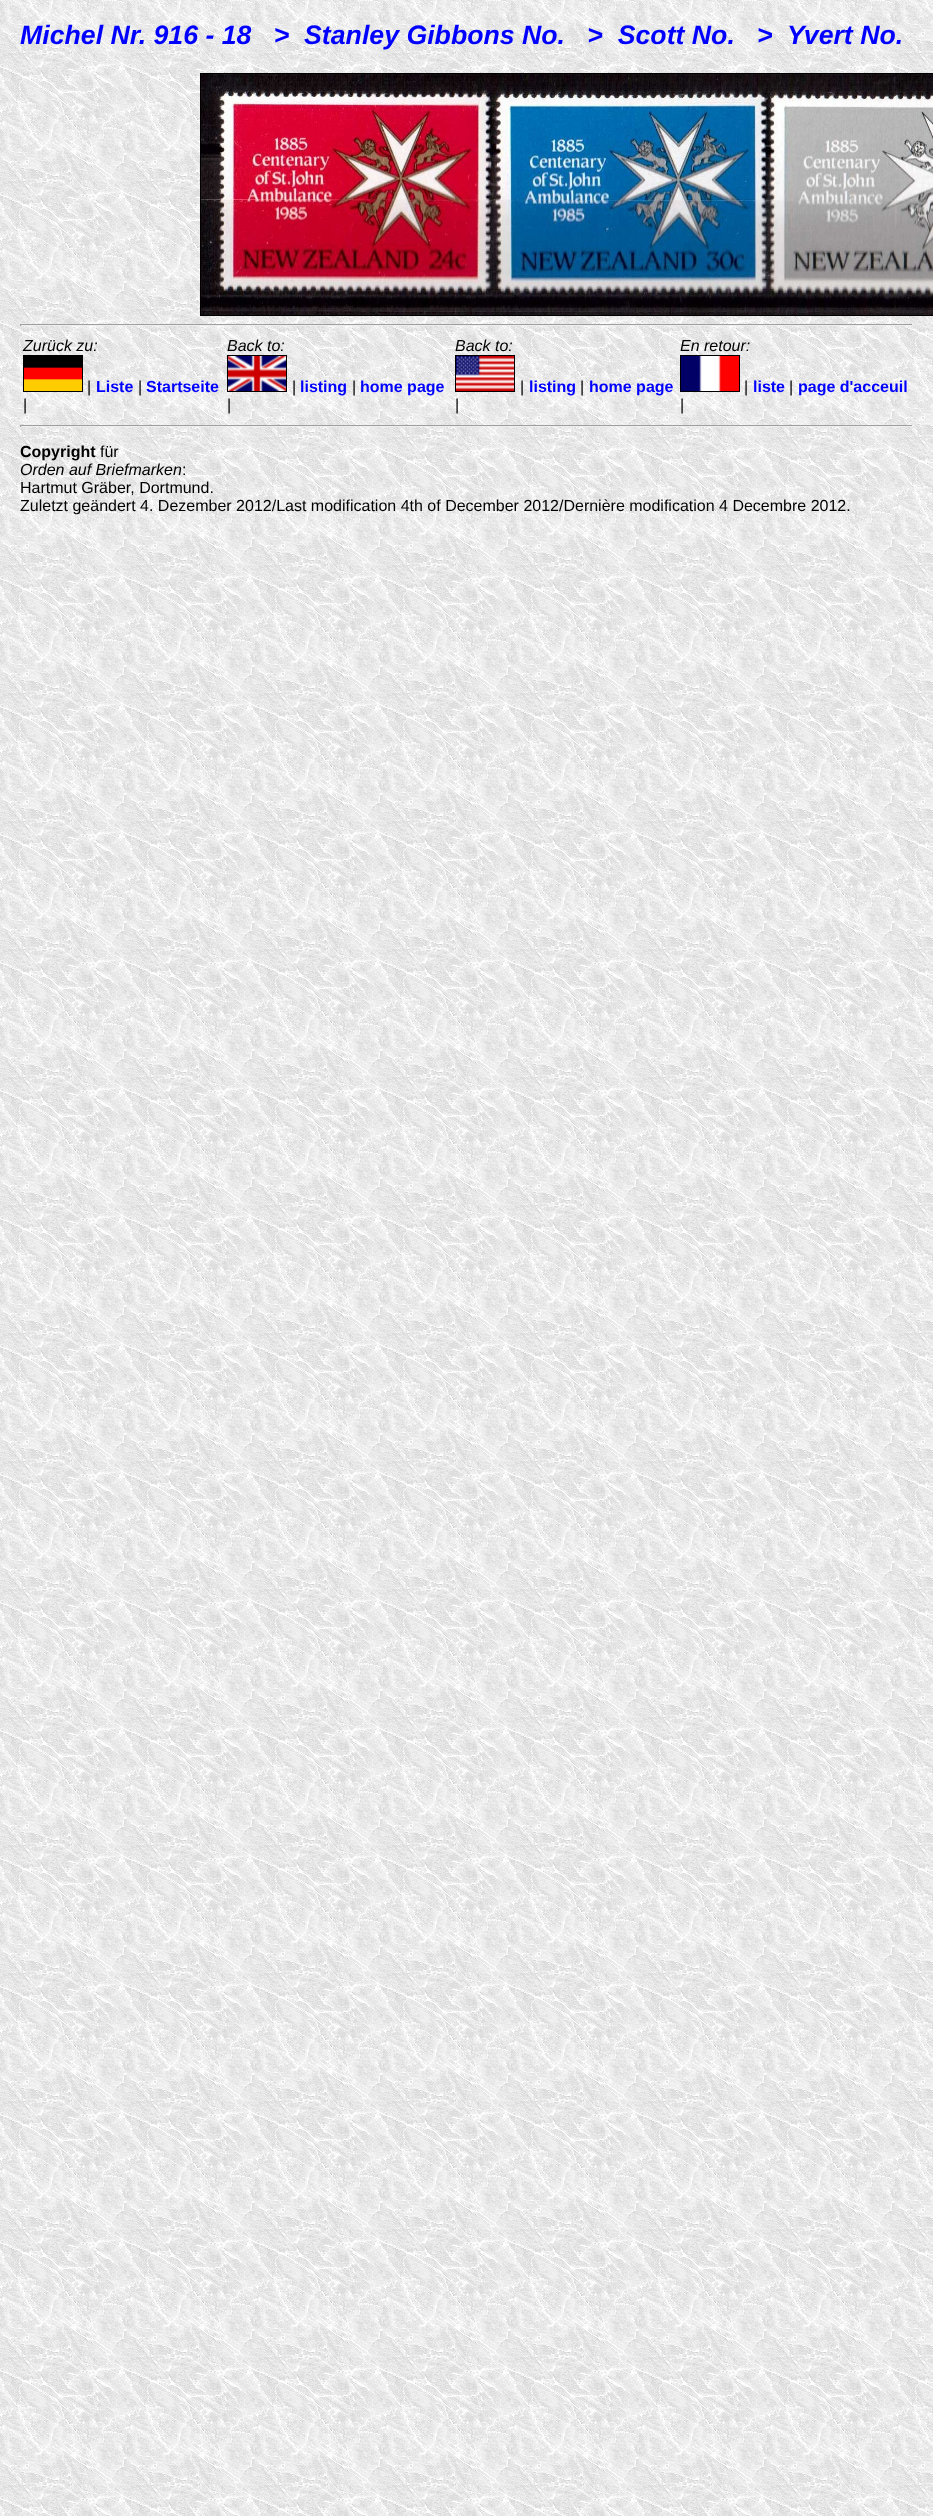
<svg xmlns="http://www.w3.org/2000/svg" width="933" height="2516">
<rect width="100%" height="100%" fill="#fff"/>
<image x="0" y="0" width="933" height="2516" href="media/1.png"/>
<text x="20" y="44" style="font-family:Liberation Sans;font-size:26.7px;font-weight:bold;font-style:italic;fill:#00f" xml:space="preserve">Michel Nr. 916 - 18   &gt;  Stanley Gibbons No.   &gt;  Scott No.   &gt;  Yvert No.</text>
<rect x="200.5" y="73.5" width="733" height="242" fill="none" stroke="#000"/>
<image x="201" y="74" width="732" height="241" href="media/2.png"/>
<rect x="20" y="324" width="893" height="1" fill="#9f9f9f"/>
<rect x="912" y="324" width="1" height="2" fill="#eee"/>
<rect x="20" y="325" width="893" height="1" fill="#eee"/>
<rect x="20" y="324" width="1" height="2" fill="#9f9f9f"/>
<text x="23" y="351" style="font-family:Liberation Sans;font-size:16px;font-style:italic;fill:#000">Zurück zu:</text>
<rect x="23.5" y="355.5" width="59" height="36" fill="none" stroke="#000"/>
<image x="24" y="356" width="58" height="35" href="media/3.png"/>
<text x="87" y="392" style="font-family:Liberation Sans;font-size:16px;fill:#000">|</text>
<text x="96" y="392" style="font-family:Liberation Sans;font-size:16px;font-weight:bold;fill:#00f">Liste</text>
<text x="138" y="392" style="font-family:Liberation Sans;font-size:16px;fill:#000">|</text>
<text x="146" y="392" style="font-family:Liberation Sans;font-size:16px;font-weight:bold;fill:#00f">Startseite</text>
<text x="23" y="410" style="font-family:Liberation Sans;font-size:16px;fill:#000">|</text>
<text x="227" y="351" style="font-family:Liberation Sans;font-size:16px;font-style:italic;fill:#000">Back to:</text>
<rect x="227.5" y="355.5" width="59" height="36" fill="none" stroke="#000"/>
<image x="228" y="356" width="58" height="35" href="media/4.png"/>
<text x="292" y="392" style="font-family:Liberation Sans;font-size:16px;fill:#000">|</text>
<text x="300" y="392" style="font-family:Liberation Sans;font-size:16px;font-weight:bold;fill:#00f">listing</text>
<text x="352" y="392" style="font-family:Liberation Sans;font-size:16px;fill:#000">|</text>
<text x="360" y="392" style="font-family:Liberation Sans;font-size:16px;font-weight:bold;fill:#00f">home page</text>
<text x="227" y="410" style="font-family:Liberation Sans;font-size:16px;fill:#000">|</text>
<text x="455" y="351" style="font-family:Liberation Sans;font-size:16px;font-style:italic;fill:#000">Back to:</text>
<rect x="455.5" y="355.5" width="59" height="36" fill="none" stroke="#000"/>
<image x="456" y="356" width="58" height="35" href="media/5.png"/>
<text x="520" y="392" style="font-family:Liberation Sans;font-size:16px;fill:#000">|</text>
<text x="529" y="392" style="font-family:Liberation Sans;font-size:16px;font-weight:bold;fill:#00f">listing</text>
<text x="580" y="392" style="font-family:Liberation Sans;font-size:16px;fill:#000">|</text>
<text x="589" y="392" style="font-family:Liberation Sans;font-size:16px;font-weight:bold;fill:#00f">home page</text>
<text x="455" y="410" style="font-family:Liberation Sans;font-size:16px;fill:#000">|</text>
<text x="680" y="351" style="font-family:Liberation Sans;font-size:16px;font-style:italic;fill:#000">En retour:</text>
<rect x="680.5" y="355.5" width="59" height="36" fill="none" stroke="#000"/>
<image x="681" y="356" width="58" height="35" href="media/6.png"/>
<text x="744" y="392" style="font-family:Liberation Sans;font-size:16px;fill:#000">|</text>
<text x="753" y="392" style="font-family:Liberation Sans;font-size:16px;font-weight:bold;fill:#00f">liste</text>
<text x="789" y="392" style="font-family:Liberation Sans;font-size:16px;fill:#000">|</text>
<text x="798" y="392" style="font-family:Liberation Sans;font-size:16px;font-weight:bold;fill:#00f">page d'acceuil</text>
<text x="680" y="410" style="font-family:Liberation Sans;font-size:16px;fill:#000">|</text>
<rect x="20" y="425" width="893" height="1" fill="#9f9f9f"/>
<rect x="912" y="425" width="1" height="2" fill="#eee"/>
<rect x="20" y="426" width="893" height="1" fill="#eee"/>
<rect x="20" y="425" width="1" height="2" fill="#9f9f9f"/>
<text x="20" y="457" style="font-family:Liberation Sans;font-size:16px;font-weight:bold;fill:#000">Copyright</text>
<text x="100" y="457" style="font-family:Liberation Sans;font-size:16px;fill:#000">für</text>
<text x="20" y="475" style="font-family:Liberation Sans;font-size:16px;font-style:italic;fill:#000">Orden auf Briefmarken</text>
<text x="182" y="475" style="font-family:Liberation Sans;font-size:16px;fill:#000">:</text>
<text x="20" y="493" style="font-family:Liberation Sans;font-size:16px;fill:#000">Hartmut Gräber, Dortmund.</text>
<text x="20" y="511" style="font-family:Liberation Sans;font-size:16px;fill:#000">Zuletzt geändert 4. Dezember 2012/Last modification 4th of December 2012/Dernière modification 4 Decembre 2012.</text>
</svg>
